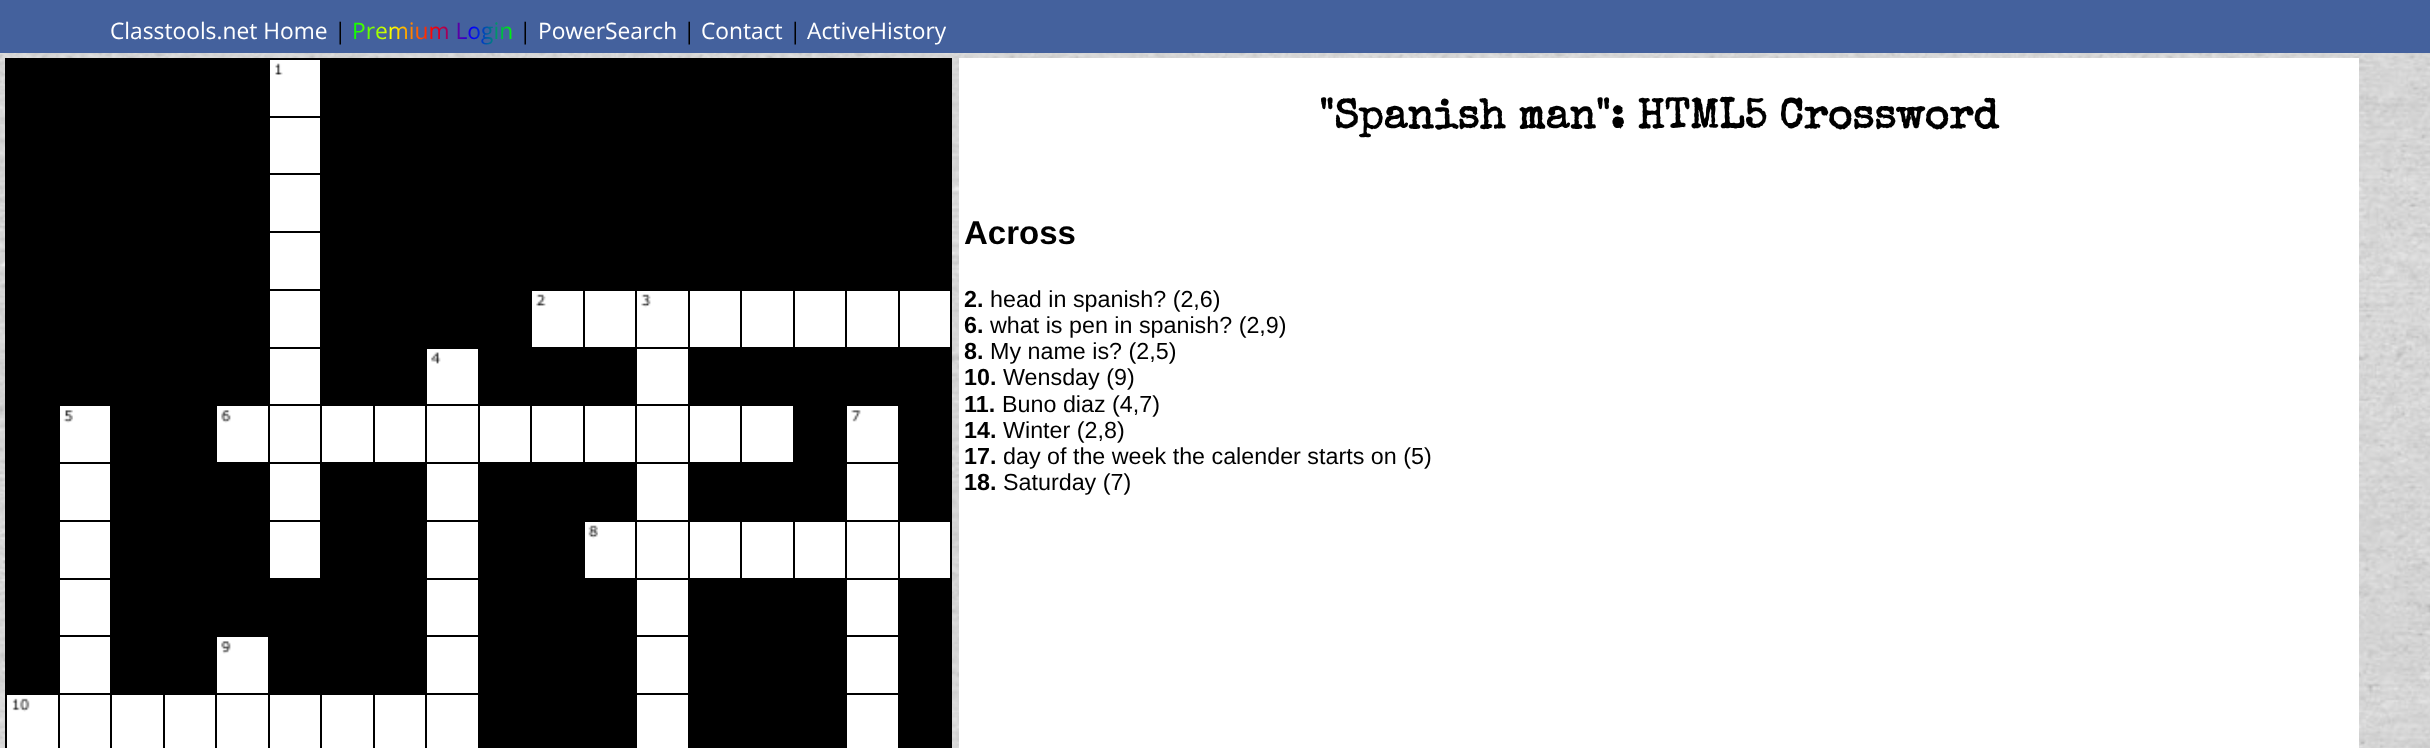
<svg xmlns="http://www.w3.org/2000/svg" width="2430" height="748">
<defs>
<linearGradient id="g1" gradientUnits="userSpaceOnUse" x1="352" y1="30" x2="513" y2="30"><stop offset="0" stop-color="#0f0"/><stop offset="0.25" stop-color="#ff0"/><stop offset="0.5" stop-color="#f00"/><stop offset="0.75" stop-color="#00f"/><stop offset="1" stop-color="#0f0"/></linearGradient>
</defs>
<rect width="100%" height="100%" fill="#fff"/>
<image x="0" y="53" width="2430" height="695" href="media/1.png"/>
<rect width="2430" height="53" fill="#44619d"/>
<text x="110" y="39" style="font-family:Open Sans;font-size:22.75px;fill:#fff">Classtools.net Home</text>
<text x="334" y="39" style="font-family:Open Sans;font-size:22.75px;fill:#000">|</text>
<text x="352" y="39" style="font-family:Open Sans;font-size:22.75px;fill:url(#g1)">Premium Login</text>
<text x="519" y="39" style="font-family:Open Sans;font-size:22.75px;fill:#000">|</text>
<text x="538" y="39" style="font-family:Open Sans;font-size:22.75px;fill:#fff">PowerSearch</text>
<text x="683" y="39" style="font-family:Open Sans;font-size:22.75px;fill:#000">|</text>
<text x="701" y="39" style="font-family:Open Sans;font-size:22.75px;fill:#fff">Contact</text>
<text x="789" y="39" style="font-family:Open Sans;font-size:22.75px;fill:#000">|</text>
<text x="807" y="39" style="font-family:Open Sans;font-size:22.75px;fill:#fff">ActiveHistory</text>
<rect x="7" y="60" width="53" height="56" fill="#000"/>
<rect x="320" y="58" width="632" height="2" fill="#000"/>
<rect x="60" y="60" width="210" height="57" fill="#000"/>
<rect x="60" y="117" width="210" height="58" fill="#000"/>
<rect x="320" y="116" width="55" height="2" fill="#000"/>
<rect x="320" y="173" width="55" height="2" fill="#000"/>
<rect x="60" y="175" width="210" height="58" fill="#000"/>
<rect x="320" y="231" width="55" height="2" fill="#000"/>
<rect x="60" y="233" width="210" height="58" fill="#000"/>
<rect x="320" y="289" width="55" height="2" fill="#000"/>
<rect x="60" y="291" width="210" height="57" fill="#000"/>
<rect x="320" y="347" width="55" height="2" fill="#000"/>
<rect x="60" y="348" width="210" height="58" fill="#000"/>
<rect x="898" y="462" width="54" height="2" fill="#000"/>
<rect x="742" y="464" width="105" height="58" fill="#000"/>
<rect x="898" y="520" width="54" height="2" fill="#000"/>
<rect x="898" y="578" width="54" height="2" fill="#000"/>
<rect x="742" y="580" width="105" height="57" fill="#000"/>
<rect x="898" y="635" width="54" height="2" fill="#000"/>
<rect x="742" y="637" width="105" height="58" fill="#000"/>
<rect x="898" y="693" width="54" height="2" fill="#000"/>
<rect x="898" y="693" width="2" height="55" fill="#000"/>
<rect x="845" y="693" width="55" height="2" fill="#000"/>
<rect x="898" y="635" width="2" height="60" fill="#000"/>
<rect x="845" y="635" width="55" height="2" fill="#000"/>
<rect x="898" y="578" width="2" height="59" fill="#000"/>
<rect x="688" y="578" width="212" height="2" fill="#000"/>
<rect x="898" y="520" width="2" height="59" fill="#000"/>
<rect x="845" y="520" width="55" height="2" fill="#000"/>
<rect x="898" y="462" width="2" height="60" fill="#000"/>
<rect x="688" y="462" width="212" height="2" fill="#000"/>
<rect x="532" y="464" width="105" height="58" fill="#000"/>
<rect x="740" y="520" width="2" height="59" fill="#000"/>
<rect x="688" y="520" width="54" height="2" fill="#000"/>
<rect x="532" y="522" width="53" height="173" fill="#000"/>
<rect x="585" y="580" width="52" height="115" fill="#000"/>
<rect x="688" y="635" width="54" height="2" fill="#000"/>
<rect x="688" y="693" width="54" height="2" fill="#000"/>
<rect x="688" y="693" width="2" height="55" fill="#000"/>
<rect x="635" y="693" width="55" height="2" fill="#000"/>
<rect x="688" y="635" width="2" height="60" fill="#000"/>
<rect x="635" y="635" width="55" height="2" fill="#000"/>
<rect x="688" y="578" width="2" height="59" fill="#000"/>
<rect x="583" y="578" width="107" height="2" fill="#000"/>
<rect x="688" y="520" width="2" height="59" fill="#000"/>
<rect x="635" y="520" width="55" height="2" fill="#000"/>
<rect x="688" y="462" width="2" height="60" fill="#000"/>
<rect x="478" y="462" width="212" height="2" fill="#000"/>
<rect x="375" y="464" width="52" height="173" fill="#000"/>
<rect x="478" y="520" width="54" height="2" fill="#000"/>
<rect x="478" y="578" width="54" height="2" fill="#000"/>
<rect x="478" y="635" width="54" height="2" fill="#000"/>
<rect x="322" y="637" width="105" height="58" fill="#000"/>
<rect x="478" y="693" width="54" height="2" fill="#000"/>
<rect x="478" y="693" width="2" height="55" fill="#000"/>
<rect x="425" y="693" width="55" height="2" fill="#000"/>
<rect x="478" y="635" width="2" height="60" fill="#000"/>
<rect x="425" y="635" width="55" height="2" fill="#000"/>
<rect x="478" y="578" width="2" height="59" fill="#000"/>
<rect x="425" y="578" width="55" height="2" fill="#000"/>
<rect x="478" y="520" width="2" height="59" fill="#000"/>
<rect x="425" y="520" width="55" height="2" fill="#000"/>
<rect x="478" y="462" width="2" height="60" fill="#000"/>
<rect x="320" y="462" width="160" height="2" fill="#000"/>
<rect x="373" y="404" width="2" height="60" fill="#000"/>
<rect x="320" y="404" width="55" height="2" fill="#000"/>
<rect x="165" y="406" width="52" height="289" fill="#000"/>
<rect x="217" y="464" width="53" height="173" fill="#000"/>
<rect x="320" y="520" width="55" height="2" fill="#000"/>
<rect x="268" y="578" width="107" height="2" fill="#000"/>
<rect x="320" y="520" width="2" height="59" fill="#000"/>
<rect x="268" y="520" width="54" height="2" fill="#000"/>
<rect x="320" y="462" width="2" height="60" fill="#000"/>
<rect x="215" y="462" width="107" height="2" fill="#000"/>
<rect x="320" y="404" width="2" height="60" fill="#000"/>
<rect x="268" y="404" width="54" height="2" fill="#000"/>
<rect x="320" y="347" width="2" height="59" fill="#000"/>
<rect x="268" y="347" width="54" height="2" fill="#000"/>
<rect x="320" y="289" width="2" height="59" fill="#000"/>
<rect x="268" y="289" width="54" height="2" fill="#000"/>
<rect x="320" y="231" width="2" height="60" fill="#000"/>
<rect x="268" y="231" width="54" height="2" fill="#000"/>
<rect x="320" y="173" width="2" height="60" fill="#000"/>
<rect x="268" y="173" width="54" height="2" fill="#000"/>
<rect x="320" y="116" width="2" height="59" fill="#000"/>
<rect x="268" y="116" width="54" height="2" fill="#000"/>
<rect x="320" y="58" width="2" height="59" fill="#000"/>
<rect x="5" y="58" width="317" height="2" fill="#000"/>
<rect x="5" y="116" width="55" height="2" fill="#000"/>
<rect x="5" y="173" width="55" height="2" fill="#000"/>
<rect x="5" y="231" width="55" height="2" fill="#000"/>
<rect x="5" y="289" width="55" height="2" fill="#000"/>
<rect x="5" y="347" width="55" height="2" fill="#000"/>
<rect x="5" y="404" width="55" height="2" fill="#000"/>
<rect x="110" y="462" width="55" height="2" fill="#000"/>
<rect x="110" y="520" width="55" height="2" fill="#000"/>
<rect x="110" y="578" width="55" height="2" fill="#000"/>
<rect x="110" y="635" width="55" height="2" fill="#000"/>
<rect x="163" y="693" width="2" height="55" fill="#000"/>
<rect x="110" y="693" width="55" height="2" fill="#000"/>
<rect x="110" y="693" width="2" height="55" fill="#000"/>
<rect x="58" y="693" width="54" height="2" fill="#000"/>
<rect x="110" y="635" width="2" height="60" fill="#000"/>
<rect x="5" y="635" width="107" height="2" fill="#000"/>
<rect x="110" y="578" width="2" height="59" fill="#000"/>
<rect x="5" y="578" width="107" height="2" fill="#000"/>
<rect x="110" y="520" width="2" height="59" fill="#000"/>
<rect x="5" y="520" width="107" height="2" fill="#000"/>
<rect x="110" y="462" width="2" height="60" fill="#000"/>
<rect x="5" y="462" width="107" height="2" fill="#000"/>
<rect x="58" y="693" width="2" height="55" fill="#000"/>
<rect x="5" y="693" width="55" height="2" fill="#000"/>
<rect x="5" y="693" width="2" height="55" fill="#000"/>
<rect x="5" y="635" width="2" height="60" fill="#000"/>
<rect x="5" y="578" width="2" height="59" fill="#000"/>
<rect x="5" y="520" width="2" height="59" fill="#000"/>
<rect x="5" y="462" width="2" height="60" fill="#000"/>
<rect x="5" y="404" width="2" height="60" fill="#000"/>
<rect x="5" y="347" width="2" height="59" fill="#000"/>
<rect x="5" y="289" width="2" height="59" fill="#000"/>
<rect x="5" y="231" width="2" height="60" fill="#000"/>
<rect x="5" y="173" width="2" height="60" fill="#000"/>
<rect x="5" y="116" width="2" height="59" fill="#000"/>
<rect x="5" y="58" width="2" height="59" fill="#000"/>
<rect x="270" y="60" width="50" height="56" fill="#fff"/>
<image x="275" y="63" width="8" height="12" href="media/2.png"/>
<rect x="322" y="60" width="53" height="56" fill="#000"/>
<rect x="375" y="60" width="577" height="57" fill="#000"/>
<rect x="7" y="118" width="53" height="55" fill="#000"/>
<rect x="270" y="118" width="50" height="55" fill="#fff"/>
<rect x="322" y="118" width="53" height="55" fill="#000"/>
<rect x="375" y="117" width="577" height="58" fill="#000"/>
<rect x="7" y="175" width="53" height="56" fill="#000"/>
<rect x="270" y="175" width="50" height="56" fill="#fff"/>
<rect x="322" y="175" width="53" height="56" fill="#000"/>
<rect x="375" y="175" width="577" height="58" fill="#000"/>
<rect x="7" y="233" width="53" height="56" fill="#000"/>
<rect x="270" y="233" width="50" height="56" fill="#fff"/>
<rect x="322" y="233" width="53" height="56" fill="#000"/>
<rect x="375" y="233" width="577" height="58" fill="#000"/>
<rect x="7" y="291" width="53" height="56" fill="#000"/>
<rect x="270" y="291" width="50" height="56" fill="#fff"/>
<rect x="322" y="291" width="53" height="56" fill="#000"/>
<rect x="375" y="291" width="52" height="115" fill="#000"/>
<rect x="427" y="291" width="105" height="56" fill="#000"/>
<rect x="532" y="291" width="51" height="56" fill="#fff"/>
<image x="536" y="294" width="10" height="12" href="media/3.png"/>
<rect x="585" y="291" width="50" height="56" fill="#fff"/>
<rect x="688" y="347" width="264" height="2" fill="#000"/>
<rect x="532" y="349" width="105" height="57" fill="#000"/>
<rect x="740" y="404" width="2" height="60" fill="#000"/>
<rect x="688" y="404" width="54" height="2" fill="#000"/>
<rect x="688" y="404" width="2" height="60" fill="#000"/>
<rect x="635" y="404" width="55" height="2" fill="#000"/>
<rect x="688" y="347" width="2" height="59" fill="#000"/>
<rect x="478" y="347" width="212" height="2" fill="#000"/>
<rect x="583" y="289" width="2" height="59" fill="#000"/>
<rect x="637" y="291" width="51" height="56" fill="#fff"/>
<image x="641" y="294" width="10" height="14" href="media/4.png"/>
<rect x="635" y="289" width="2" height="59" fill="#000"/>
<rect x="690" y="291" width="50" height="56" fill="#fff"/>
<rect x="688" y="289" width="2" height="59" fill="#000"/>
<rect x="742" y="291" width="51" height="56" fill="#fff"/>
<rect x="740" y="289" width="2" height="59" fill="#000"/>
<rect x="795" y="291" width="50" height="56" fill="#fff"/>
<rect x="793" y="289" width="2" height="59" fill="#000"/>
<rect x="847" y="291" width="51" height="56" fill="#fff"/>
<rect x="845" y="289" width="2" height="59" fill="#000"/>
<rect x="900" y="291" width="50" height="56" fill="#fff"/>
<rect x="950" y="289" width="2" height="59" fill="#000"/>
<rect x="898" y="289" width="2" height="59" fill="#000"/>
<rect x="7" y="349" width="53" height="55" fill="#000"/>
<rect x="270" y="349" width="50" height="55" fill="#fff"/>
<rect x="322" y="349" width="53" height="55" fill="#000"/>
<rect x="427" y="349" width="51" height="55" fill="#fff"/>
<image x="431" y="352" width="10" height="12" href="media/5.png"/>
<rect x="530" y="404" width="2" height="60" fill="#000"/>
<rect x="478" y="404" width="54" height="2" fill="#000"/>
<rect x="478" y="404" width="2" height="60" fill="#000"/>
<rect x="425" y="404" width="55" height="2" fill="#000"/>
<rect x="478" y="347" width="2" height="59" fill="#000"/>
<rect x="425" y="347" width="55" height="2" fill="#000"/>
<rect x="480" y="349" width="52" height="55" fill="#000"/>
<rect x="637" y="349" width="51" height="55" fill="#fff"/>
<rect x="690" y="349" width="52" height="55" fill="#000"/>
<rect x="742" y="349" width="210" height="57" fill="#000"/>
<rect x="7" y="406" width="53" height="56" fill="#000"/>
<rect x="60" y="406" width="50" height="56" fill="#fff"/>
<image x="63" y="410" width="10" height="13" href="media/6.png"/>
<rect x="112" y="406" width="53" height="56" fill="#000"/>
<rect x="110" y="404" width="2" height="60" fill="#000"/>
<rect x="217" y="406" width="51" height="56" fill="#fff"/>
<image x="221" y="410" width="10" height="13" href="media/7.png"/>
<rect x="270" y="406" width="50" height="56" fill="#fff"/>
<rect x="268" y="404" width="2" height="60" fill="#000"/>
<rect x="322" y="406" width="51" height="56" fill="#fff"/>
<rect x="375" y="406" width="50" height="56" fill="#fff"/>
<rect x="427" y="406" width="51" height="56" fill="#fff"/>
<rect x="425" y="404" width="2" height="60" fill="#000"/>
<rect x="480" y="406" width="50" height="56" fill="#fff"/>
<rect x="532" y="406" width="51" height="56" fill="#fff"/>
<rect x="585" y="406" width="50" height="56" fill="#fff"/>
<rect x="583" y="404" width="2" height="60" fill="#000"/>
<rect x="637" y="406" width="51" height="56" fill="#fff"/>
<rect x="635" y="404" width="2" height="60" fill="#000"/>
<rect x="690" y="406" width="50" height="56" fill="#fff"/>
<rect x="742" y="406" width="51" height="56" fill="#fff"/>
<rect x="795" y="406" width="52" height="56" fill="#000"/>
<rect x="793" y="404" width="2" height="60" fill="#000"/>
<rect x="847" y="406" width="51" height="56" fill="#fff"/>
<image x="851" y="410" width="10" height="12" href="media/8.png"/>
<rect x="900" y="406" width="52" height="56" fill="#000"/>
<rect x="898" y="404" width="2" height="60" fill="#000"/>
<rect x="7" y="464" width="53" height="56" fill="#000"/>
<rect x="60" y="464" width="50" height="56" fill="#fff"/>
<rect x="112" y="464" width="53" height="56" fill="#000"/>
<rect x="270" y="464" width="50" height="56" fill="#fff"/>
<rect x="322" y="464" width="53" height="56" fill="#000"/>
<rect x="427" y="464" width="51" height="56" fill="#fff"/>
<rect x="480" y="464" width="52" height="56" fill="#000"/>
<rect x="637" y="464" width="51" height="56" fill="#fff"/>
<rect x="690" y="464" width="52" height="56" fill="#000"/>
<rect x="847" y="464" width="51" height="56" fill="#fff"/>
<rect x="900" y="464" width="52" height="56" fill="#000"/>
<rect x="7" y="522" width="53" height="56" fill="#000"/>
<rect x="60" y="522" width="50" height="56" fill="#fff"/>
<rect x="112" y="522" width="53" height="56" fill="#000"/>
<rect x="270" y="522" width="50" height="56" fill="#fff"/>
<rect x="322" y="522" width="53" height="56" fill="#000"/>
<rect x="427" y="522" width="51" height="56" fill="#fff"/>
<rect x="480" y="522" width="52" height="56" fill="#000"/>
<rect x="585" y="522" width="50" height="56" fill="#fff"/>
<image x="588" y="525" width="10" height="14" href="media/9.png"/>
<rect x="637" y="522" width="51" height="56" fill="#fff"/>
<rect x="635" y="520" width="2" height="59" fill="#000"/>
<rect x="690" y="522" width="50" height="56" fill="#fff"/>
<rect x="742" y="522" width="51" height="56" fill="#fff"/>
<rect x="795" y="522" width="50" height="56" fill="#fff"/>
<rect x="793" y="520" width="2" height="59" fill="#000"/>
<rect x="847" y="522" width="51" height="56" fill="#fff"/>
<rect x="845" y="520" width="2" height="59" fill="#000"/>
<rect x="900" y="522" width="50" height="56" fill="#fff"/>
<rect x="950" y="520" width="2" height="59" fill="#000"/>
<rect x="7" y="580" width="53" height="55" fill="#000"/>
<rect x="60" y="580" width="50" height="55" fill="#fff"/>
<rect x="112" y="580" width="53" height="55" fill="#000"/>
<rect x="427" y="580" width="51" height="55" fill="#fff"/>
<rect x="480" y="580" width="52" height="55" fill="#000"/>
<rect x="637" y="580" width="51" height="55" fill="#fff"/>
<rect x="690" y="580" width="52" height="55" fill="#000"/>
<rect x="270" y="580" width="105" height="57" fill="#000"/>
<rect x="847" y="580" width="51" height="55" fill="#fff"/>
<rect x="900" y="580" width="52" height="55" fill="#000"/>
<rect x="7" y="637" width="53" height="56" fill="#000"/>
<rect x="60" y="637" width="50" height="56" fill="#fff"/>
<rect x="112" y="637" width="53" height="56" fill="#000"/>
<rect x="217" y="637" width="51" height="56" fill="#fff"/>
<image x="221" y="641" width="10" height="13" href="media/10.png"/>
<rect x="270" y="637" width="52" height="56" fill="#000"/>
<rect x="320" y="693" width="2" height="55" fill="#000"/>
<rect x="268" y="693" width="54" height="2" fill="#000"/>
<rect x="268" y="693" width="2" height="55" fill="#000"/>
<rect x="215" y="693" width="55" height="2" fill="#000"/>
<rect x="268" y="635" width="2" height="60" fill="#000"/>
<rect x="427" y="637" width="51" height="56" fill="#fff"/>
<rect x="480" y="637" width="52" height="56" fill="#000"/>
<rect x="637" y="637" width="51" height="56" fill="#fff"/>
<rect x="690" y="637" width="52" height="56" fill="#000"/>
<rect x="847" y="637" width="51" height="56" fill="#fff"/>
<rect x="900" y="637" width="52" height="56" fill="#000"/>
<rect x="7" y="695" width="51" height="53" fill="#fff"/>
<image x="12" y="698" width="18" height="14" href="media/11.png"/>
<rect x="60" y="695" width="50" height="53" fill="#fff"/>
<rect x="112" y="695" width="51" height="53" fill="#fff"/>
<rect x="165" y="695" width="50" height="53" fill="#fff"/>
<rect x="217" y="695" width="51" height="53" fill="#fff"/>
<rect x="215" y="693" width="2" height="55" fill="#000"/>
<rect x="270" y="695" width="50" height="53" fill="#fff"/>
<rect x="322" y="695" width="51" height="53" fill="#fff"/>
<rect x="375" y="695" width="50" height="53" fill="#fff"/>
<rect x="373" y="693" width="2" height="55" fill="#000"/>
<rect x="427" y="695" width="51" height="53" fill="#fff"/>
<rect x="425" y="693" width="2" height="55" fill="#000"/>
<rect x="480" y="695" width="157" height="53" fill="#000"/>
<rect x="637" y="695" width="51" height="53" fill="#fff"/>
<rect x="690" y="695" width="157" height="53" fill="#000"/>
<rect x="847" y="695" width="51" height="53" fill="#fff"/>
<rect x="900" y="695" width="52" height="53" fill="#000"/>
<rect x="959" y="58" width="1400" height="690" fill="#fff"/>
<text x="1319" y="128" style="font-family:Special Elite;font-size:42px;font-weight:bold;fill:#000">"Spanish man": HTML5 Crossword</text>
<text x="964" y="244" style="font-family:Liberation Sans;font-size:33px;font-weight:bold;fill:#000">Across</text>
<text x="964" y="307" style="font-family:Liberation Sans;font-size:23.3px;font-weight:bold;fill:#000">2.</text>
<text x="990" y="307" style="font-family:Liberation Sans;font-size:23.3px;fill:#000">head in spanish? (2,6)</text>
<text x="964" y="333" style="font-family:Liberation Sans;font-size:23.3px;font-weight:bold;fill:#000">6.</text>
<text x="990" y="333" style="font-family:Liberation Sans;font-size:23.3px;fill:#000">what is pen in spanish? (2,9)</text>
<text x="964" y="359" style="font-family:Liberation Sans;font-size:23.3px;font-weight:bold;fill:#000">8.</text>
<text x="990" y="359" style="font-family:Liberation Sans;font-size:23.3px;fill:#000">My name is? (2,5)</text>
<text x="964" y="385" style="font-family:Liberation Sans;font-size:23.3px;font-weight:bold;fill:#000">10.</text>
<text x="1003" y="385" style="font-family:Liberation Sans;font-size:23.3px;fill:#000">Wensday (9)</text>
<text x="964" y="412" style="font-family:Liberation Sans;font-size:23.3px;font-weight:bold;fill:#000">11.</text>
<text x="1002" y="412" style="font-family:Liberation Sans;font-size:23.3px;fill:#000">Buno diaz (4,7)</text>
<text x="964" y="438" style="font-family:Liberation Sans;font-size:23.3px;font-weight:bold;fill:#000">14.</text>
<text x="1003" y="438" style="font-family:Liberation Sans;font-size:23.3px;fill:#000">Winter (2,8)</text>
<text x="964" y="464" style="font-family:Liberation Sans;font-size:23.3px;font-weight:bold;fill:#000">17.</text>
<text x="1003" y="464" style="font-family:Liberation Sans;font-size:23.3px;fill:#000">day of the week the calender starts on (5)</text>
<text x="964" y="490" style="font-family:Liberation Sans;font-size:23.3px;font-weight:bold;fill:#000">18.</text>
<text x="1003" y="490" style="font-family:Liberation Sans;font-size:23.3px;fill:#000">Saturday (7)</text>
</svg>
